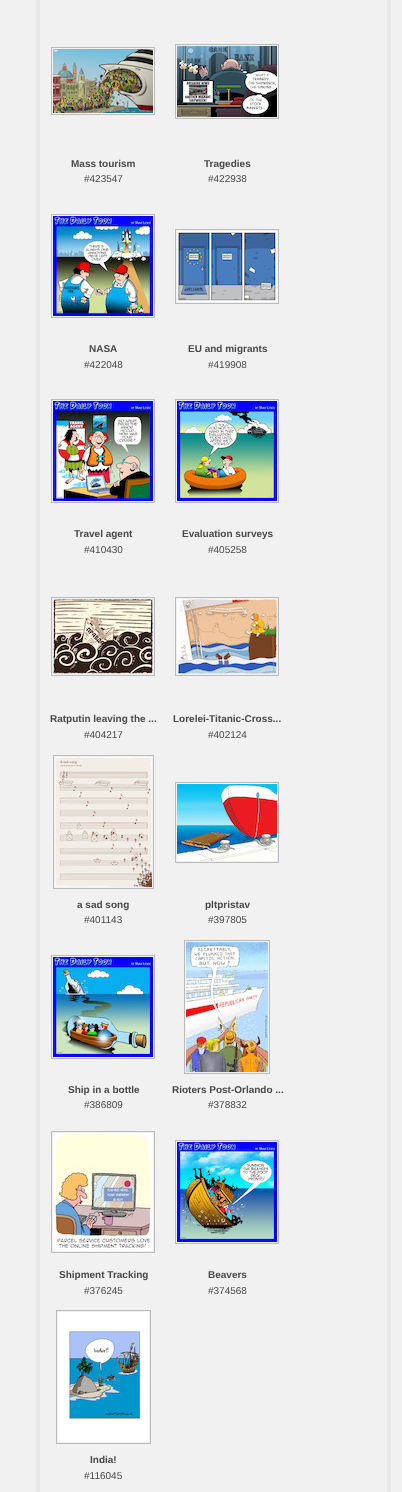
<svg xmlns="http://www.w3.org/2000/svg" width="402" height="1492">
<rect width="100%" height="100%" fill="#f1f1f1"/>
<rect x="38" y="-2" width="351" height="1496" fill="none" stroke="#e8e8e8" stroke-width="4"/>
<rect x="51.5" y="47.5" width="103" height="67" fill="none" stroke="#bbb"/>
<image x="53" y="49" width="100" height="64" href="media/1.png"/>
<text x="71" y="167" style="font-family:Liberation Sans;font-size:10px;font-weight:bold;fill:#494949">Mass tourism</text>
<text x="84" y="182" style="font-family:Liberation Sans;font-size:10px;fill:#494949">#423547</text>
<rect x="175.5" y="44.5" width="103" height="74" fill="none" stroke="#bbb"/>
<image x="177" y="46" width="100" height="71" href="media/2.png"/>
<text x="204" y="167" style="font-family:Liberation Sans;font-size:10px;font-weight:bold;fill:#494949">Tragedies</text>
<text x="208" y="182" style="font-family:Liberation Sans;font-size:10px;fill:#494949">#422938</text>
<rect x="51.5" y="214.5" width="103" height="103" fill="none" stroke="#bbb"/>
<image x="53" y="216" width="100" height="100" href="media/3.png"/>
<text x="89" y="352" style="font-family:Liberation Sans;font-size:10px;font-weight:bold;fill:#494949">NASA</text>
<text x="84" y="368" style="font-family:Liberation Sans;font-size:10px;fill:#494949">#422048</text>
<rect x="175.5" y="229.5" width="103" height="74" fill="none" stroke="#bbb"/>
<image x="177" y="231" width="100" height="71" href="media/4.png"/>
<text x="188" y="352" style="font-family:Liberation Sans;font-size:10px;font-weight:bold;fill:#494949">EU and migrants</text>
<text x="208" y="368" style="font-family:Liberation Sans;font-size:10px;fill:#494949">#419908</text>
<rect x="51.5" y="399.5" width="103" height="103" fill="none" stroke="#bbb"/>
<image x="53" y="401" width="100" height="100" href="media/5.png"/>
<text x="74" y="537" style="font-family:Liberation Sans;font-size:10px;font-weight:bold;fill:#494949">Travel agent</text>
<text x="84" y="553" style="font-family:Liberation Sans;font-size:10px;fill:#494949">#410430</text>
<rect x="175.5" y="399.5" width="103" height="103" fill="none" stroke="#bbb"/>
<image x="177" y="401" width="100" height="100" href="media/6.png"/>
<text x="182" y="537" style="font-family:Liberation Sans;font-size:10px;font-weight:bold;fill:#494949">Evaluation surveys</text>
<text x="208" y="553" style="font-family:Liberation Sans;font-size:10px;fill:#494949">#405258</text>
<rect x="51.5" y="597.5" width="103" height="78" fill="none" stroke="#bbb"/>
<image x="53" y="599" width="100" height="75" href="media/7.png"/>
<text x="50" y="722" style="font-family:Liberation Sans;font-size:10px;font-weight:bold;fill:#494949">Ratputin leaving the ...</text>
<text x="84" y="738" style="font-family:Liberation Sans;font-size:10px;fill:#494949">#404217</text>
<rect x="175.5" y="597.5" width="103" height="78" fill="none" stroke="#bbb"/>
<image x="177" y="599" width="100" height="75" href="media/8.png"/>
<text x="173" y="722" style="font-family:Liberation Sans;font-size:10px;font-weight:bold;fill:#494949">Lorelei-Titanic-Cross...</text>
<text x="208" y="738" style="font-family:Liberation Sans;font-size:10px;fill:#494949">#402124</text>
<rect x="53.5" y="755.5" width="100" height="133" fill="none" stroke="#bbb"/>
<image x="55" y="757" width="97" height="130" href="media/9.png"/>
<text x="77" y="908" style="font-family:Liberation Sans;font-size:10px;font-weight:bold;fill:#494949">a sad song</text>
<text x="84" y="923" style="font-family:Liberation Sans;font-size:10px;fill:#494949">#401143</text>
<rect x="175.5" y="782.5" width="103" height="80" fill="none" stroke="#bbb"/>
<image x="177" y="784" width="100" height="77" href="media/10.png"/>
<text x="205" y="908" style="font-family:Liberation Sans;font-size:10px;font-weight:bold;fill:#494949">pltpristav</text>
<text x="208" y="923" style="font-family:Liberation Sans;font-size:10px;fill:#494949">#397805</text>
<rect x="51.5" y="955.5" width="103" height="103" fill="none" stroke="#bbb"/>
<image x="53" y="957" width="100" height="100" href="media/11.png"/>
<text x="68" y="1093" style="font-family:Liberation Sans;font-size:10px;font-weight:bold;fill:#494949">Ship in a bottle</text>
<text x="84" y="1108" style="font-family:Liberation Sans;font-size:10px;fill:#494949">#386809</text>
<rect x="184.5" y="940.5" width="85" height="133" fill="none" stroke="#bbb"/>
<image x="186" y="942" width="82" height="130" href="media/12.png"/>
<text x="172" y="1093" style="font-family:Liberation Sans;font-size:10px;font-weight:bold;fill:#494949">Rioters Post-Orlando ...</text>
<text x="208" y="1108" style="font-family:Liberation Sans;font-size:10px;fill:#494949">#378832</text>
<rect x="51.5" y="1131.5" width="103" height="121" fill="none" stroke="#bbb"/>
<image x="53" y="1133" width="100" height="118" href="media/13.png"/>
<text x="59" y="1278" style="font-family:Liberation Sans;font-size:10px;font-weight:bold;fill:#494949">Shipment Tracking</text>
<text x="84" y="1294" style="font-family:Liberation Sans;font-size:10px;fill:#494949">#376245</text>
<rect x="175.5" y="1140.5" width="103" height="103" fill="none" stroke="#bbb"/>
<image x="177" y="1142" width="100" height="100" href="media/14.png"/>
<text x="208" y="1278" style="font-family:Liberation Sans;font-size:10px;font-weight:bold;fill:#494949">Beavers</text>
<text x="208" y="1294" style="font-family:Liberation Sans;font-size:10px;fill:#494949">#374568</text>
<rect x="56.5" y="1310.5" width="94" height="133" fill="none" stroke="#bbb"/>
<image x="58" y="1312" width="91" height="130" href="media/15.png"/>
<text x="90" y="1463" style="font-family:Liberation Sans;font-size:10px;font-weight:bold;fill:#494949">India!</text>
<text x="84" y="1479" style="font-family:Liberation Sans;font-size:10px;fill:#494949">#116045</text>
</svg>
